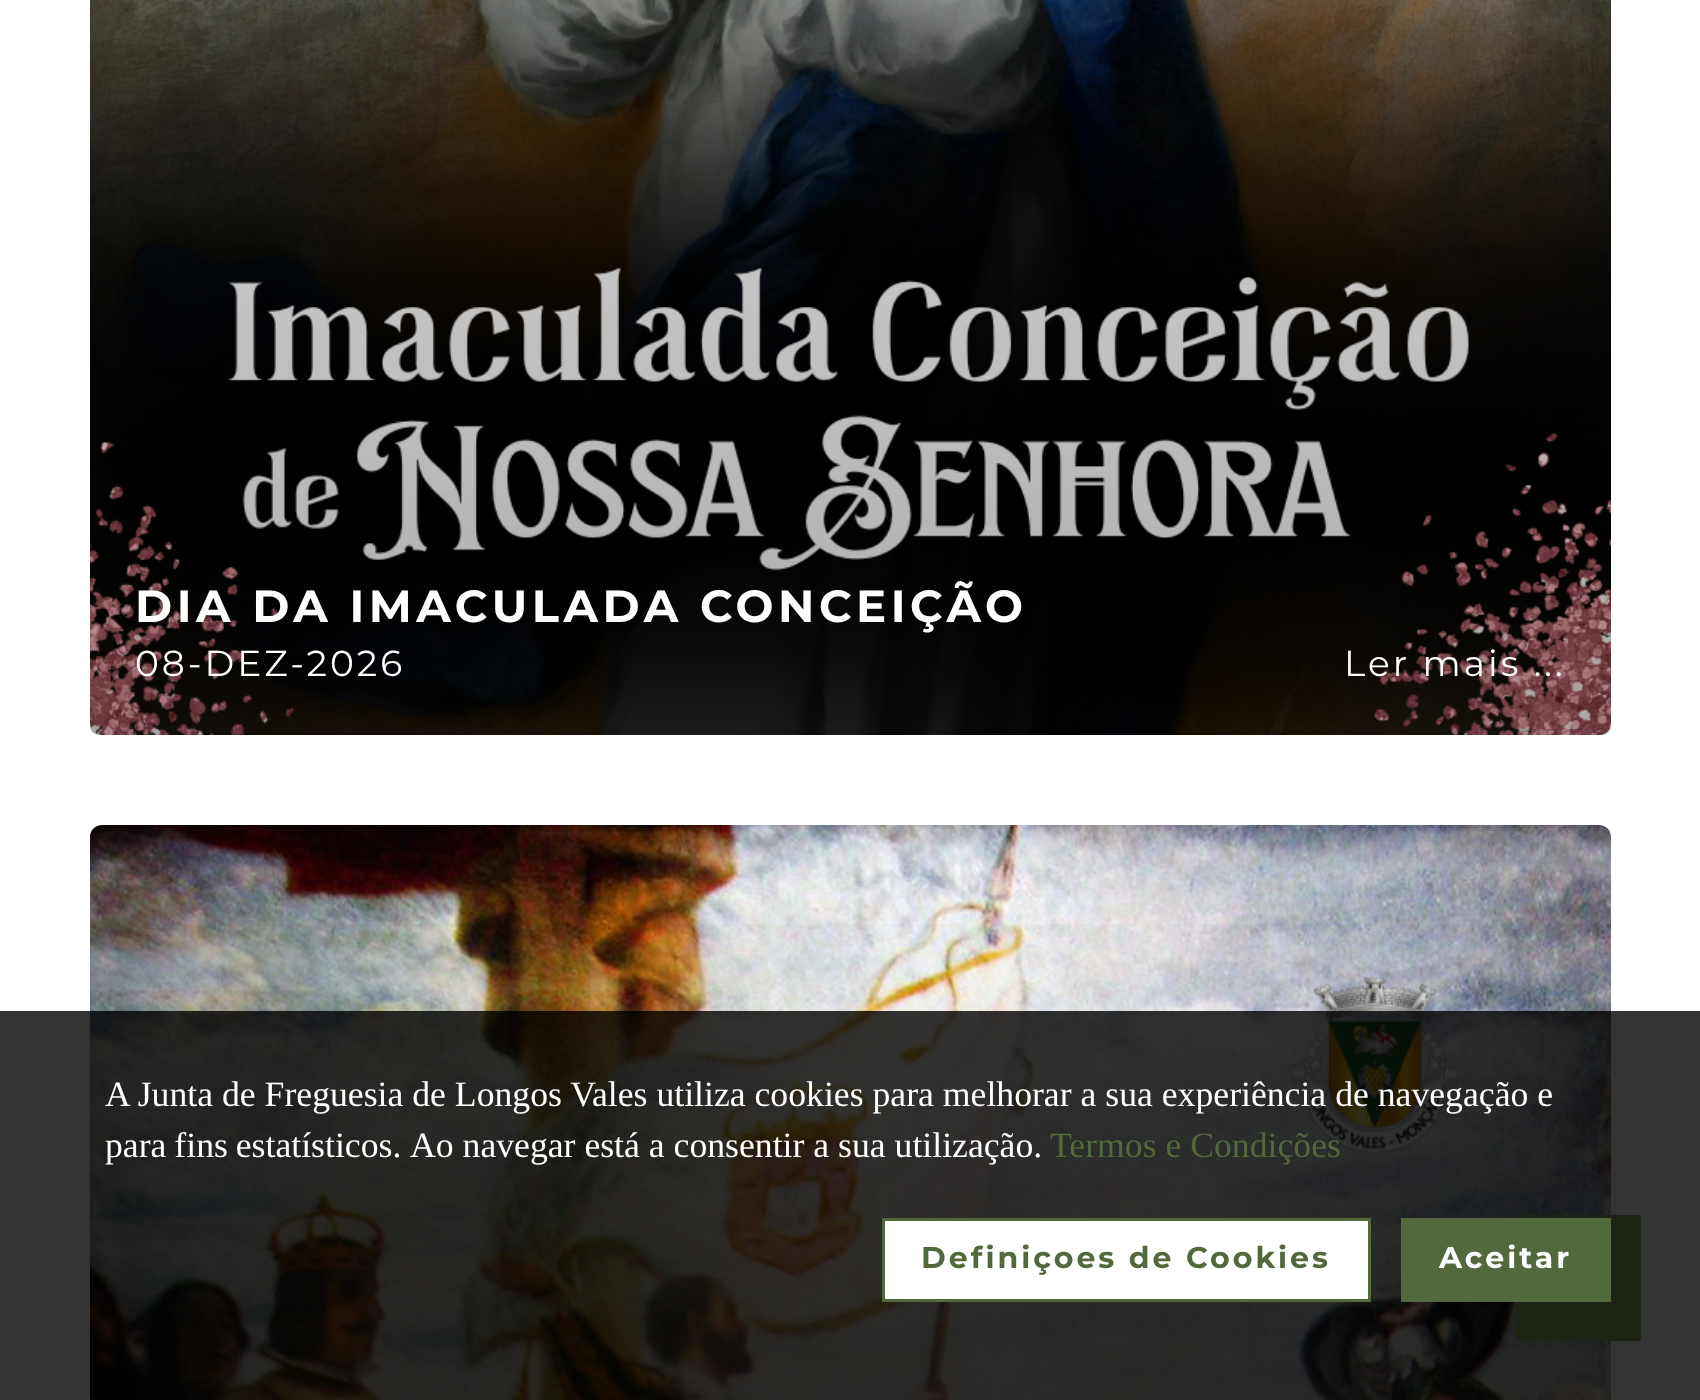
<svg xmlns="http://www.w3.org/2000/svg" width="1700" height="1400">
<defs>
<linearGradient id="g1" gradientUnits="userSpaceOnUse" x1="850" y1="-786" x2="851" y2="735"><stop offset="0" stop-color="#000" stop-opacity="0"/><stop offset="1" stop-color="#000" stop-opacity="0.33"/></linearGradient>
<linearGradient id="g2" gradientUnits="userSpaceOnUse" x1="850" y1="825" x2="851" y2="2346"><stop offset="0" stop-color="#000" stop-opacity="0"/><stop offset="1" stop-color="#000" stop-opacity="0.33"/></linearGradient>
</defs>
<rect width="100%" height="100%" fill="#fff"/>
<image x="90" y="0" width="1521" height="735" href="media/1.png"/>
<rect x="90" y="-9" width="1521" height="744" rx="9" fill="url(#g1)"/>
<text x="135" y="622" style="font-family:Montserrat;font-size:45px;font-weight:bold;letter-spacing:4.5px;fill:#fff">DIA DA IMACULADA CONCEIÇÃO</text>
<text x="135" y="676" style="font-family:Montserrat;font-size:36px;letter-spacing:3px;fill:#fff">08-DEZ-2026</text>
<text x="1344" y="676" style="font-family:Montserrat;font-size:36px;letter-spacing:3px;fill:#fff">Ler mais ...</text>
<image x="90" y="825" width="1521" height="575" href="media/2.png"/>
<rect x="90" y="924" width="1521" height="476" fill="url(#g2)"/>
<rect x="1515" y="1215" width="126" height="126" fill="#91b469"/>
<rect y="1011" width="1700" height="389" fill="#000000cc"/>
<text x="105" y="1106" style="font-family:Liberation Serif;font-size:35.7px;fill:#fff">A Junta de Freguesia de Longos Vales utiliza cookies para melhorar a sua experiência de navegação e</text>
<text x="105" y="1157" word-spacing="-1" style="font-family:Liberation Serif;font-size:35.7px;fill:#fff">para fins estatísticos.</text>
<text x="410" y="1157" style="font-family:Liberation Serif;font-size:35.7px;fill:#fff">Ao navegar está a consentir a sua utilização.</text>
<text x="1050" y="1157" style="font-family:Liberation Serif;font-size:35.7px;fill:#54683d">Termos e Condições</text>
<rect x="883.5" y="1219.5" width="486" height="81" fill="#fff" stroke="#54683d" stroke-width="3"/>
<text x="921" y="1268" style="font-family:Montserrat;font-size:30px;font-weight:bold;letter-spacing:3px;fill:#54683d">Definiçoes de Cookies</text>
<rect x="1401" y="1218" width="210" height="84" fill="#54683d"/>
<text x="1439" y="1268" style="font-family:Montserrat;font-size:30px;font-weight:bold;letter-spacing:3px;fill:#fff">Aceitar</text>
</svg>
